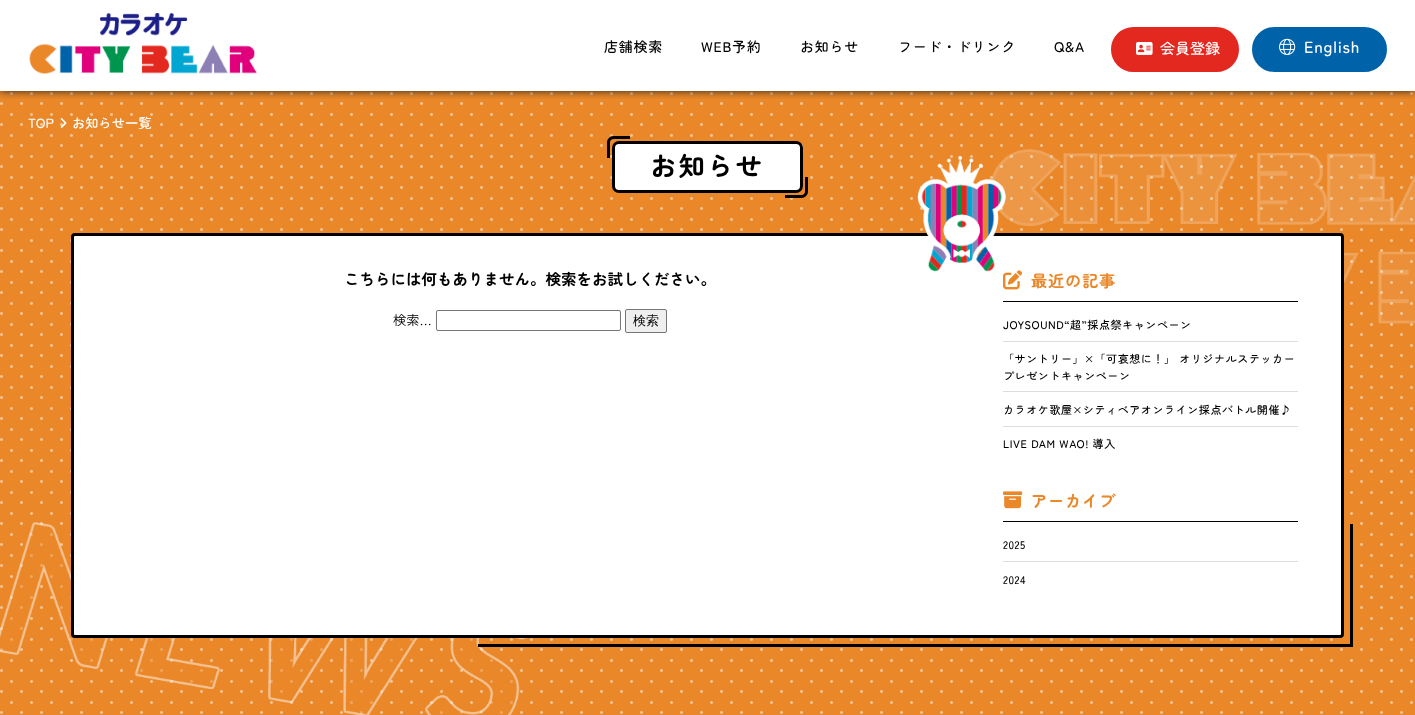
<svg xmlns="http://www.w3.org/2000/svg" width="1415" height="715">
<defs>
<clipPath id="clip1"><rect x="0" y="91" width="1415" height="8"/></clipPath>
</defs>
<rect width="100%" height="100%" fill="#fff"/>
<rect y="91" width="1415" height="624" fill="#ea8728"/>
<image x="0" y="92" width="1413" height="622" href="media/4.png"/>
<g clip-path="url(#clip1)">
<rect width="1415" height="91" fill="#222" filter="blur(4px)"/>
</g>
<image x="29" y="13" width="228" height="61" href="media/1.png"/>
<text x="604" y="52" style="font-family:Zen Maru Gothic;font-size:14px;font-weight:500;letter-spacing:0.75px;fill:#000">店舗検索</text>
<text x="701" y="52" style="font-family:Zen Maru Gothic;font-size:14px;font-weight:500;letter-spacing:0.75px;fill:#000">WEB予約</text>
<text x="800" y="52" style="font-family:Zen Maru Gothic;font-size:14px;font-weight:500;letter-spacing:0.75px;fill:#000">お知らせ</text>
<text x="898" y="52" style="font-family:Zen Maru Gothic;font-size:14px;font-weight:500;letter-spacing:0.75px;fill:#000">フード・ドリンク</text>
<text x="1054" y="52" style="font-family:Zen Maru Gothic;font-size:14px;font-weight:500;letter-spacing:0.75px;fill:#000">Q&amp;A</text>
<rect x="1112" y="28" width="126" height="43" rx="21.5" fill="#e32820" stroke="#e32820" stroke-width="2"/>
<image x="1136" y="42" width="17" height="13" href="media/2.png"/>
<text x="1160" y="54" style="font-family:Zen Maru Gothic;font-size:15px;font-weight:500;fill:#fff">会員登録</text>
<rect x="1253" y="28" width="133" height="43" rx="21.5" fill="#0062a9" stroke="#0062a9" stroke-width="2"/>
<image x="1279" y="38" width="17" height="17" href="media/3.png"/>
<text x="1304" y="53" style="font-family:Zen Maru Gothic;font-size:16.25px;font-weight:500;letter-spacing:0.75px;fill:#fff">English</text>
<text x="28" y="128" style="font-family:Zen Maru Gothic;font-size:13.25px;font-weight:500;fill:#fff">TOP</text>
<image x="60" y="118" width="7" height="10" href="media/5.png"/>
<text x="72" y="128" style="font-family:Zen Maru Gothic;font-size:13.25px;font-weight:500;fill:#fff">お知らせ一覧</text>
<rect x="613.5" y="142.5" width="188" height="49" rx="5.5" fill="#fff" stroke="#000" stroke-width="3"/>
<path d="M613.5 136h16.5v22h-23v-15.5c0-3.5 3-6.5 6.5-6.5zm0 3h16.5v19h-20v-15.5c0-2 1.5-3.5 3.5-3.5z" fill="#000" fill-rule="evenodd"/>
<text x="650" y="176" style="font-family:Zen Maru Gothic;font-size:26.5px;font-weight:bold;letter-spacing:2px;fill:#000">お知らせ</text>
<path d="M785 177h23v14.5c0 3.5-3 6.5-6.5 6.5h-16.5zm0 0h20v14.5c0 2-1.5 3.5-3.5 3.5h-16.5z" fill="#000" fill-rule="evenodd"/>
<image x="991" y="149" width="424" height="175" href="media/6.png"/>
<image x="0" y="522" width="527" height="193" href="media/10.png"/>
<rect x="72.5" y="234.5" width="1270" height="402" rx="2.5" fill="#fff" stroke="#000" stroke-width="3"/>
<image x="917" y="156" width="89" height="116" href="media/7.png"/>
<text x="344" y="285" style="font-family:Zen Maru Gothic;font-size:15.5px;font-weight:bold;fill:#000">こちらには何もありません。検索をお試しください。</text>
<text x="393" y="325" style="font-family:Zen Maru Gothic;font-size:13.25px;fill:#000">検索…</text>
<rect x="436.5" y="310.5" width="184" height="20" rx="1.5" fill="none" stroke="#767676"/>
<rect x="625.5" y="309.5" width="41" height="23" rx="1.5" fill="#efefef" stroke="#767676"/>
<text x="633" y="325" style="font-family:WenQuanYi Zen Hei;font-size:13px;font-weight:500;fill:#000">検索</text>
<rect x="1003" y="301" width="295" height="1" fill="#000"/>
<image x="1003" y="270" width="19" height="20" href="media/8.png"/>
<text x="1031" y="287" style="font-family:Zen Maru Gothic;font-size:16.25px;font-weight:bold;letter-spacing:0.75px;fill:#ea8728">最近の記事</text>
<rect x="1003" y="341" width="295" height="1" fill="#ddd"/>
<text x="1003" y="329" style="font-family:Zen Maru Gothic;font-size:11.05px;font-weight:500;letter-spacing:0.55px;fill:#000">JOYSOUND“超”採点祭キャンペーン</text>
<rect x="1003" y="391" width="295" height="1" fill="#ddd"/>
<text x="1003" y="363" style="font-family:Zen Maru Gothic;font-size:11.05px;font-weight:500;letter-spacing:0.55px;fill:#000">「サントリー」×「可哀想に！」 オリジナルステッカー</text>
<text x="1003" y="380" style="font-family:Zen Maru Gothic;font-size:11.05px;font-weight:500;letter-spacing:0.55px;fill:#000">プレゼントキャンペーン</text>
<rect x="1003" y="426" width="295" height="1" fill="#ddd"/>
<text x="1003" y="414" style="font-family:Zen Maru Gothic;font-size:11.05px;font-weight:500;letter-spacing:0.55px;fill:#000">カラオケ歌屋×シティベアオンライン採点バトル開催♪</text>
<text x="1003" y="448" style="font-family:Zen Maru Gothic;font-size:11.05px;font-weight:500;letter-spacing:0.55px;fill:#000">LIVE DAM WAO! 導入</text>
<rect x="1003" y="521" width="295" height="1" fill="#000"/>
<image x="1003" y="491" width="20" height="18" href="media/9.png"/>
<text x="1031" y="507" style="font-family:Zen Maru Gothic;font-size:16.25px;font-weight:bold;letter-spacing:0.75px;fill:#ea8728">アーカイブ</text>
<rect x="1003" y="561" width="295" height="1" fill="#ddd"/>
<text x="1003" y="549" style="font-family:Zen Maru Gothic;font-size:11.05px;font-weight:500;letter-spacing:0.55px;fill:#000">2025</text>
<text x="1003" y="584" style="font-family:Zen Maru Gothic;font-size:11.05px;font-weight:500;letter-spacing:0.55px;fill:#000">2024</text>
<rect x="1350" y="524" width="3" height="123" fill="#000"/>
<rect x="478" y="644" width="875" height="3" fill="#000"/>
</svg>
